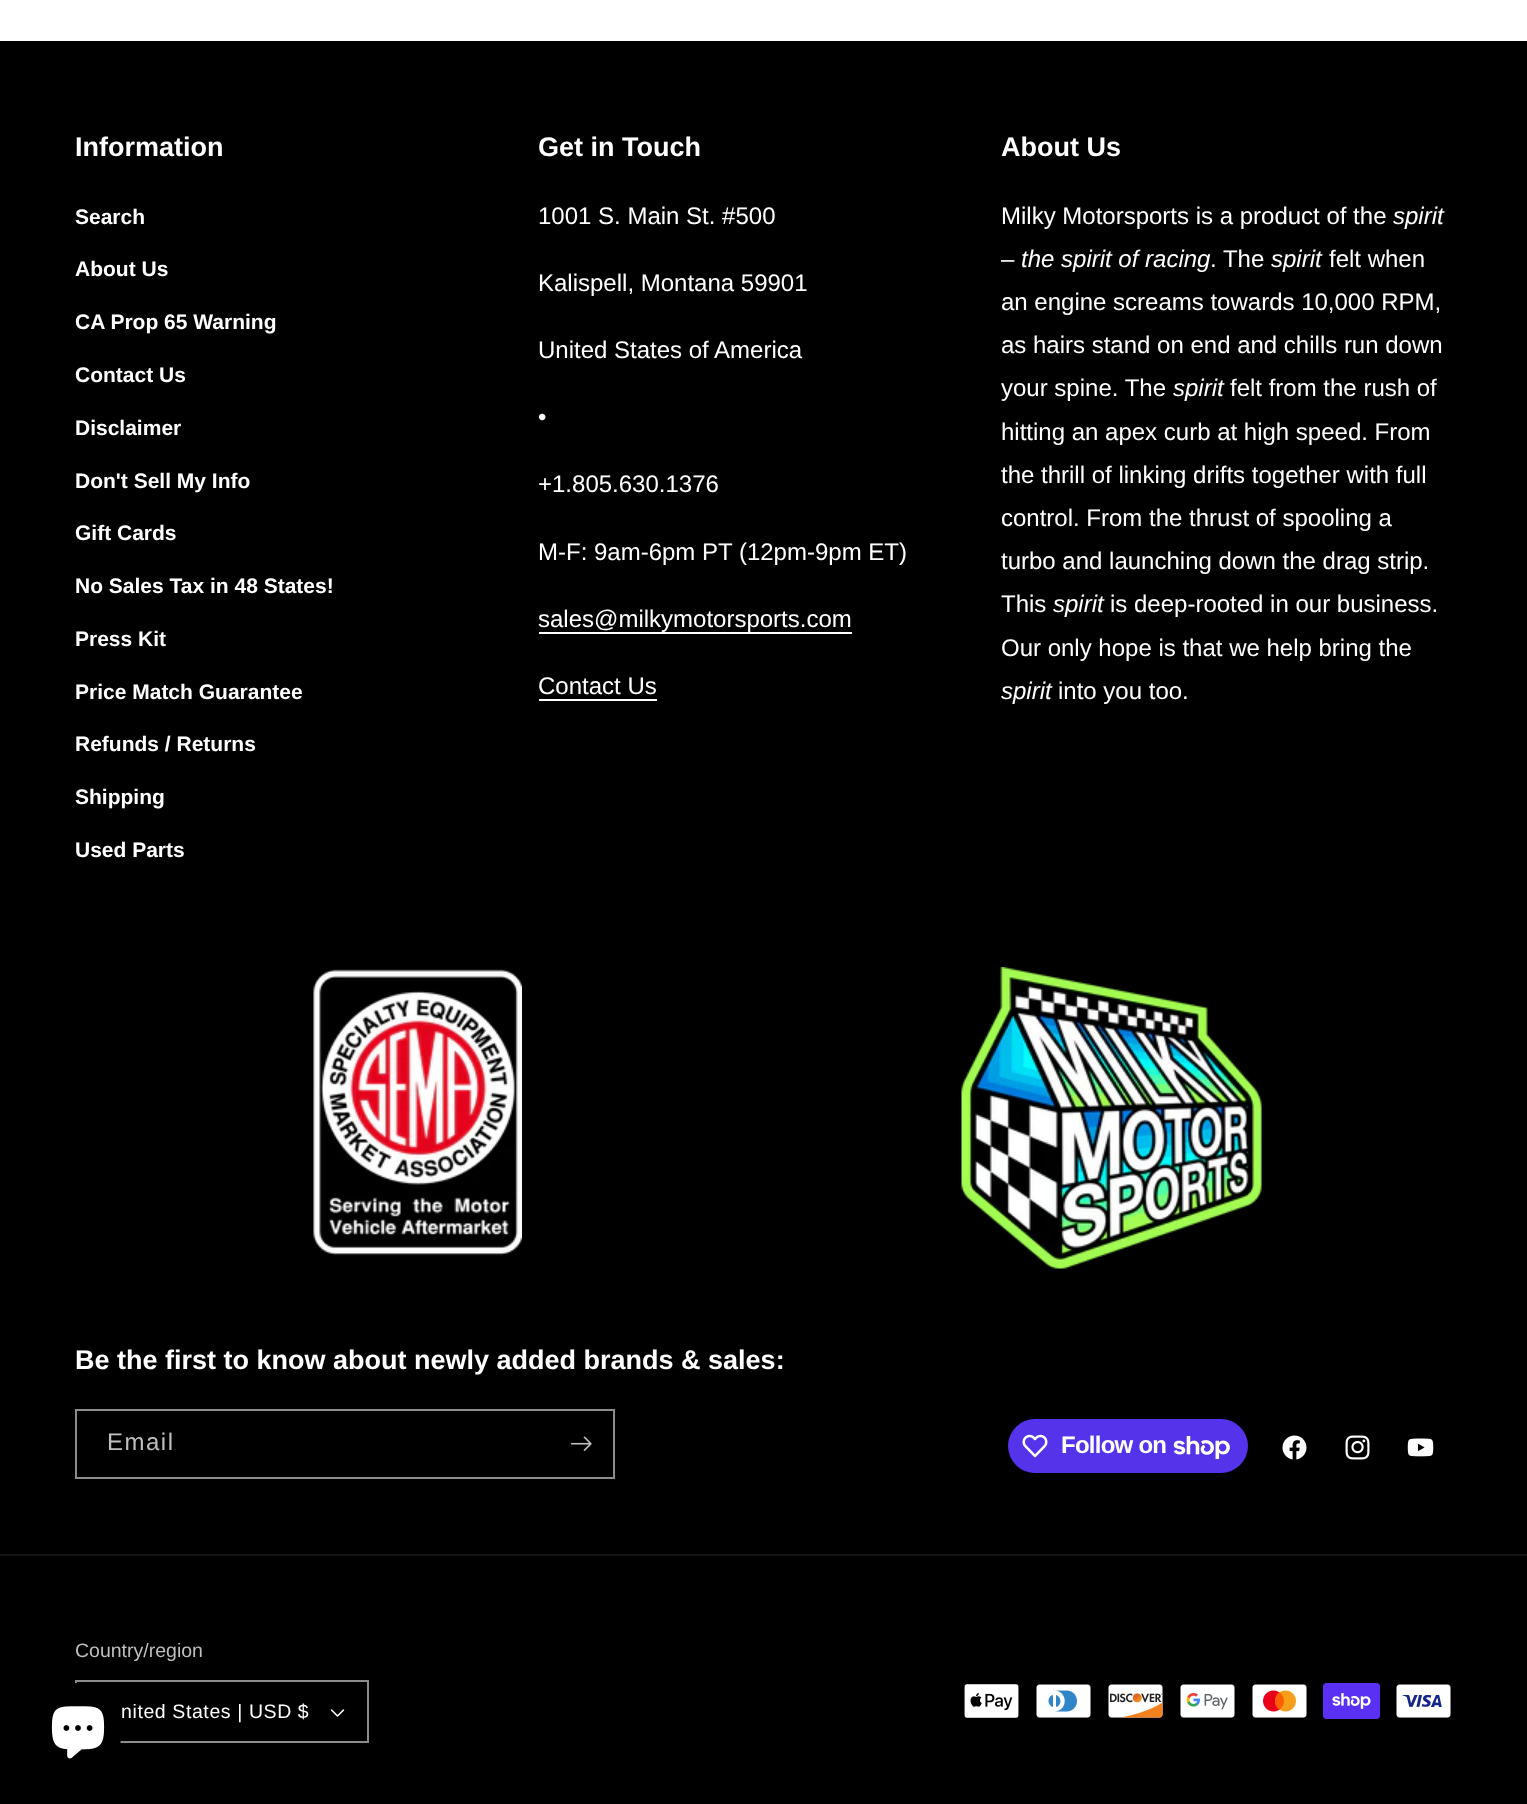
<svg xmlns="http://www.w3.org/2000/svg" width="1527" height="1804">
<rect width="100%" height="100%" fill="#fff"/>
<rect y="41" width="1527" height="1763" fill="#000"/>
<text x="75" y="156" style="font-family:Liberation Sans;font-size:27px;font-weight:bold;fill:#fff">Information</text>
<text x="75" y="224" style="font-family:Liberation Sans;font-size:21px;font-weight:bold;fill:#fff">Search</text>
<text x="75" y="276" style="font-family:Liberation Sans;font-size:21px;font-weight:bold;fill:#fff">About Us</text>
<text x="75" y="329" style="font-family:Liberation Sans;font-size:21px;font-weight:bold;fill:#fff">CA Prop 65 Warning</text>
<text x="75" y="382" style="font-family:Liberation Sans;font-size:21px;font-weight:bold;fill:#fff">Contact Us</text>
<text x="75" y="435" style="font-family:Liberation Sans;font-size:21px;font-weight:bold;fill:#fff">Disclaimer</text>
<text x="75" y="488" style="font-family:Liberation Sans;font-size:21px;font-weight:bold;fill:#fff">Don't Sell My Info</text>
<text x="75" y="540" style="font-family:Liberation Sans;font-size:21px;font-weight:bold;fill:#fff">Gift Cards</text>
<text x="75" y="593" style="font-family:Liberation Sans;font-size:21px;font-weight:bold;fill:#fff">No Sales Tax in 48 States!</text>
<text x="75" y="646" style="font-family:Liberation Sans;font-size:21px;font-weight:bold;fill:#fff">Press Kit</text>
<text x="75" y="699" style="font-family:Liberation Sans;font-size:21px;font-weight:bold;fill:#fff">Price Match Guarantee</text>
<text x="75" y="751" style="font-family:Liberation Sans;font-size:21px;font-weight:bold;fill:#fff">Refunds / Returns</text>
<text x="75" y="804" style="font-family:Liberation Sans;font-size:21px;font-weight:bold;fill:#fff">Shipping</text>
<text x="75" y="857" style="font-family:Liberation Sans;font-size:21px;font-weight:bold;fill:#fff">Used Parts</text>
<text x="538" y="156" style="font-family:Liberation Sans;font-size:27px;font-weight:bold;fill:#fff">Get in Touch</text>
<text x="538" y="224" style="font-family:Liberation Sans;font-size:24px;fill:#fff">1001 S. Main St. #500</text>
<text x="538" y="291" style="font-family:Liberation Sans;font-size:24px;fill:#fff">Kalispell, Montana 59901</text>
<text x="538" y="358" style="font-family:Liberation Sans;font-size:24px;fill:#fff">United States of America</text>
<text x="538" y="425" style="font-family:Liberation Sans;font-size:24px;fill:#fff">•</text>
<text x="538" y="492" style="font-family:Liberation Sans;font-size:24px;fill:#fff">+1.805.630.1376</text>
<text x="538" y="560" style="font-family:Liberation Sans;font-size:24px;fill:#fff">M-F: 9am-6pm PT (12pm-9pm ET)</text>
<text x="538" y="627" style="font-family:Liberation Sans;font-size:24px;fill:#fff">sales@milkymotorsports.com</text>
<rect x="539" y="632" width="313" height="2" fill="#fff"/>
<text x="538" y="694" style="font-family:Liberation Sans;font-size:24px;fill:#fff">Contact Us</text>
<rect x="539" y="699" width="118" height="2" fill="#fff"/>
<text x="1001" y="156" style="font-family:Liberation Sans;font-size:27px;font-weight:bold;fill:#fff">About Us</text>
<text x="1001" y="224" style="font-family:Liberation Sans;font-size:24px;fill:#fff">Milky Motorsports is a product of the</text>
<text x="1393" y="224" style="font-family:Liberation Sans;font-size:24px;font-style:italic;fill:#fff">spirit</text>
<text x="1001" y="267" style="font-family:Liberation Sans;font-size:24px;fill:#fff">–</text>
<text x="1021" y="267" style="font-family:Liberation Sans;font-size:24px;font-style:italic;fill:#fff">the spirit of racing</text>
<text x="1210" y="267" style="font-family:Liberation Sans;font-size:24px;fill:#fff">. The</text>
<text x="1271" y="267" style="font-family:Liberation Sans;font-size:24px;font-style:italic;fill:#fff">spirit</text>
<text x="1329" y="267" style="font-family:Liberation Sans;font-size:24px;fill:#fff">felt when</text>
<text x="1001" y="310" style="font-family:Liberation Sans;font-size:24px;fill:#fff">an engine screams towards 10,000 RPM,</text>
<text x="1001" y="353" style="font-family:Liberation Sans;font-size:24px;fill:#fff">as hairs stand on end and chills run down</text>
<text x="1001" y="396" style="font-family:Liberation Sans;font-size:24px;fill:#fff">your spine. The</text>
<text x="1173" y="396" style="font-family:Liberation Sans;font-size:24px;font-style:italic;fill:#fff">spirit</text>
<text x="1230" y="396" style="font-family:Liberation Sans;font-size:24px;fill:#fff">felt from the rush of</text>
<text x="1001" y="440" style="font-family:Liberation Sans;font-size:24px;fill:#fff">hitting an apex curb at high speed. From</text>
<text x="1001" y="483" style="font-family:Liberation Sans;font-size:24px;fill:#fff">the thrill of linking drifts together with full</text>
<text x="1001" y="526" style="font-family:Liberation Sans;font-size:24px;fill:#fff">control. From the thrust of spooling a</text>
<text x="1001" y="569" style="font-family:Liberation Sans;font-size:24px;fill:#fff">turbo and launching down the drag strip.</text>
<text x="1001" y="612" style="font-family:Liberation Sans;font-size:24px;fill:#fff">This</text>
<text x="1053" y="612" style="font-family:Liberation Sans;font-size:24px;font-style:italic;fill:#fff">spirit</text>
<text x="1110" y="612" style="font-family:Liberation Sans;font-size:24px;fill:#fff">is deep-rooted in our business.</text>
<text x="1001" y="656" style="font-family:Liberation Sans;font-size:24px;fill:#fff">Our only hope is that we help bring the</text>
<text x="1001" y="699" style="font-family:Liberation Sans;font-size:24px;font-style:italic;fill:#fff">spirit</text>
<text x="1058" y="699" style="font-family:Liberation Sans;font-size:24px;fill:#fff">into you too.</text>
<image x="313" y="969" width="209" height="287" href="media/1.png"/>
<image x="961" y="967" width="301" height="302" href="media/2.png"/>
<text x="75" y="1369" style="font-family:Liberation Sans;font-size:27px;font-weight:bold;fill:#fff">Be the first to know about newly added brands &amp; sales:</text>
<rect x="76" y="1410" width="538" height="68" fill="none" stroke="#8c8c8c" stroke-width="2"/>
<text x="107" y="1450" style="font-family:Liberation Sans;font-size:24px;letter-spacing:1.5px;fill:#bfbfbf">Email</text>
<image x="570" y="1436" width="22" height="15" href="media/3.png"/>
<rect x="1008" y="1419" width="240" height="54" rx="27" fill="#5433eb"/>
<image x="1022" y="1434" width="26" height="24" href="media/4.png"/>
<text x="1061" y="1453" style="font-family:Liberation Sans;font-size:24px;font-weight:bold;letter-spacing:-0.75px;fill:#fff">Follow on</text>
<image x="1173" y="1436" width="57" height="23" href="media/5.png"/>
<image x="1282" y="1435" width="25" height="25" href="media/6.png"/>
<image x="1345" y="1435" width="25" height="25" href="media/7.png"/>
<image x="1407" y="1438" width="27" height="19" href="media/8.png"/>
<rect y="1554" width="1527" height="2" fill="#141414"/>
<text x="75" y="1657" style="font-family:Liberation Sans;font-size:19.5px;fill:#bfbfbf">Country/region</text>
<image x="330" y="1709" width="15" height="8" href="media/9.png"/>
<rect x="76" y="1681" width="292" height="61" fill="none" stroke="#8c8c8c" stroke-width="2"/>
<text x="121" y="1718" style="font-family:Liberation Sans;font-size:19.5px;letter-spacing:0.6px;fill:#fff">nited States | USD $</text>
<image x="964" y="1684" width="55" height="34" href="media/10.png"/>
<image x="1036" y="1684" width="55" height="34" href="media/11.png"/>
<image x="1108" y="1684" width="55" height="34" href="media/12.png"/>
<image x="1180" y="1684" width="55" height="34" href="media/13.png"/>
<image x="1252" y="1684" width="55" height="34" href="media/14.png"/>
<image x="1323" y="1683" width="57" height="36" href="media/15.png"/>
<image x="1396" y="1684" width="55" height="34" href="media/16.png"/>
<circle cx="78" cy="1728" r="45" fill="#000"/>
<image x="51" y="1706" width="54" height="53" href="media/17.png"/>
</svg>
